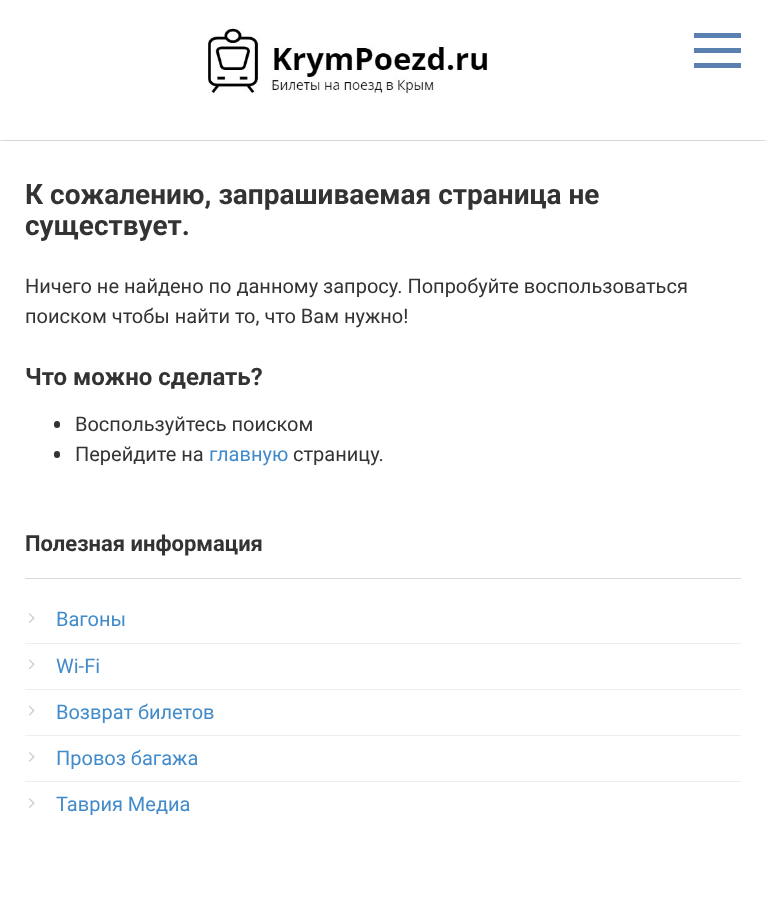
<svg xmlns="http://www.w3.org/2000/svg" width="766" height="924">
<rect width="100%" height="100%" fill="#ececec"/>
<rect y="4" width="766" height="140" fill="#0000001a" filter="blur(3px)"/>
<rect width="766" height="140" fill="#fff"/>
<image x="208" y="25" width="280" height="69" href="media/1.png"/>
<rect x="694" y="33" width="47" height="5" fill="#5a80b1"/>
<rect x="694" y="63" width="47" height="5" fill="#5a80b1"/>
<rect x="694" y="48" width="47" height="5" fill="#5a80b1"/>
<rect y="141" width="766" height="783" fill="#fff"/>
<text x="25" y="204" style="font-family:Roboto;font-size:28px;font-weight:bold;fill:#333">К сожалению, запрашиваемая страница не</text>
<text x="25" y="235" style="font-family:Roboto;font-size:28px;font-weight:bold;fill:#333">существует.</text>
<text x="25" y="293" style="font-family:Roboto;font-size:20px;fill:#333">Ничего не найдено по данному запросу. Попробуйте воспользоваться</text>
<text x="25" y="323" style="font-family:Roboto;font-size:20px;fill:#333">поиском чтобы найти то, что Вам нужно!</text>
<text x="25" y="385" style="font-family:Roboto;font-size:24px;font-weight:bold;fill:#333">Что можно сделать?</text>
<rect x="54" y="421" width="6" height="7" rx="3" fill="#333"/>
<text x="75" y="431" style="font-family:Roboto;font-size:20px;fill:#333">Воспользуйтесь поиском</text>
<rect x="54" y="451" width="6" height="7" rx="3" fill="#333"/>
<text x="75" y="461" style="font-family:Roboto;font-size:20px;fill:#333">Перейдите на</text>
<text x="209" y="461" style="font-family:Roboto;font-size:20px;fill:#428bca">главную</text>
<text x="293" y="461" style="font-family:Roboto;font-size:20px;fill:#333">страницу.</text>
<rect x="25" y="578" width="716" height="1" fill="#dadada"/>
<text x="25" y="551" style="font-family:Roboto;font-size:22px;font-weight:bold;fill:#333">Полезная информация</text>
<rect x="25" y="643" width="716" height="1" fill="#eee"/>
<image x="29" y="613" width="6" height="10" href="media/2.png"/>
<text x="56" y="626" style="font-family:Roboto;font-size:20px;fill:#428bca">Вагоны</text>
<rect x="25" y="689" width="716" height="1" fill="#eee"/>
<image x="29" y="659" width="6" height="11" href="media/3.png"/>
<text x="56" y="673" style="font-family:Roboto;font-size:20px;fill:#428bca">Wi-Fi</text>
<rect x="25" y="735" width="716" height="1" fill="#eee"/>
<image x="29" y="705" width="6" height="11" href="media/4.png"/>
<text x="56" y="719" style="font-family:Roboto;font-size:20px;fill:#428bca">Возврат билетов</text>
<rect x="25" y="781" width="716" height="1" fill="#eee"/>
<image x="29" y="752" width="6" height="10" href="media/5.png"/>
<text x="56" y="765" style="font-family:Roboto;font-size:20px;fill:#428bca">Провоз багажа</text>
<image x="29" y="798" width="6" height="10" href="media/2.png"/>
<text x="56" y="811" style="font-family:Roboto;font-size:20px;fill:#428bca">Таврия Медиа</text>
</svg>
